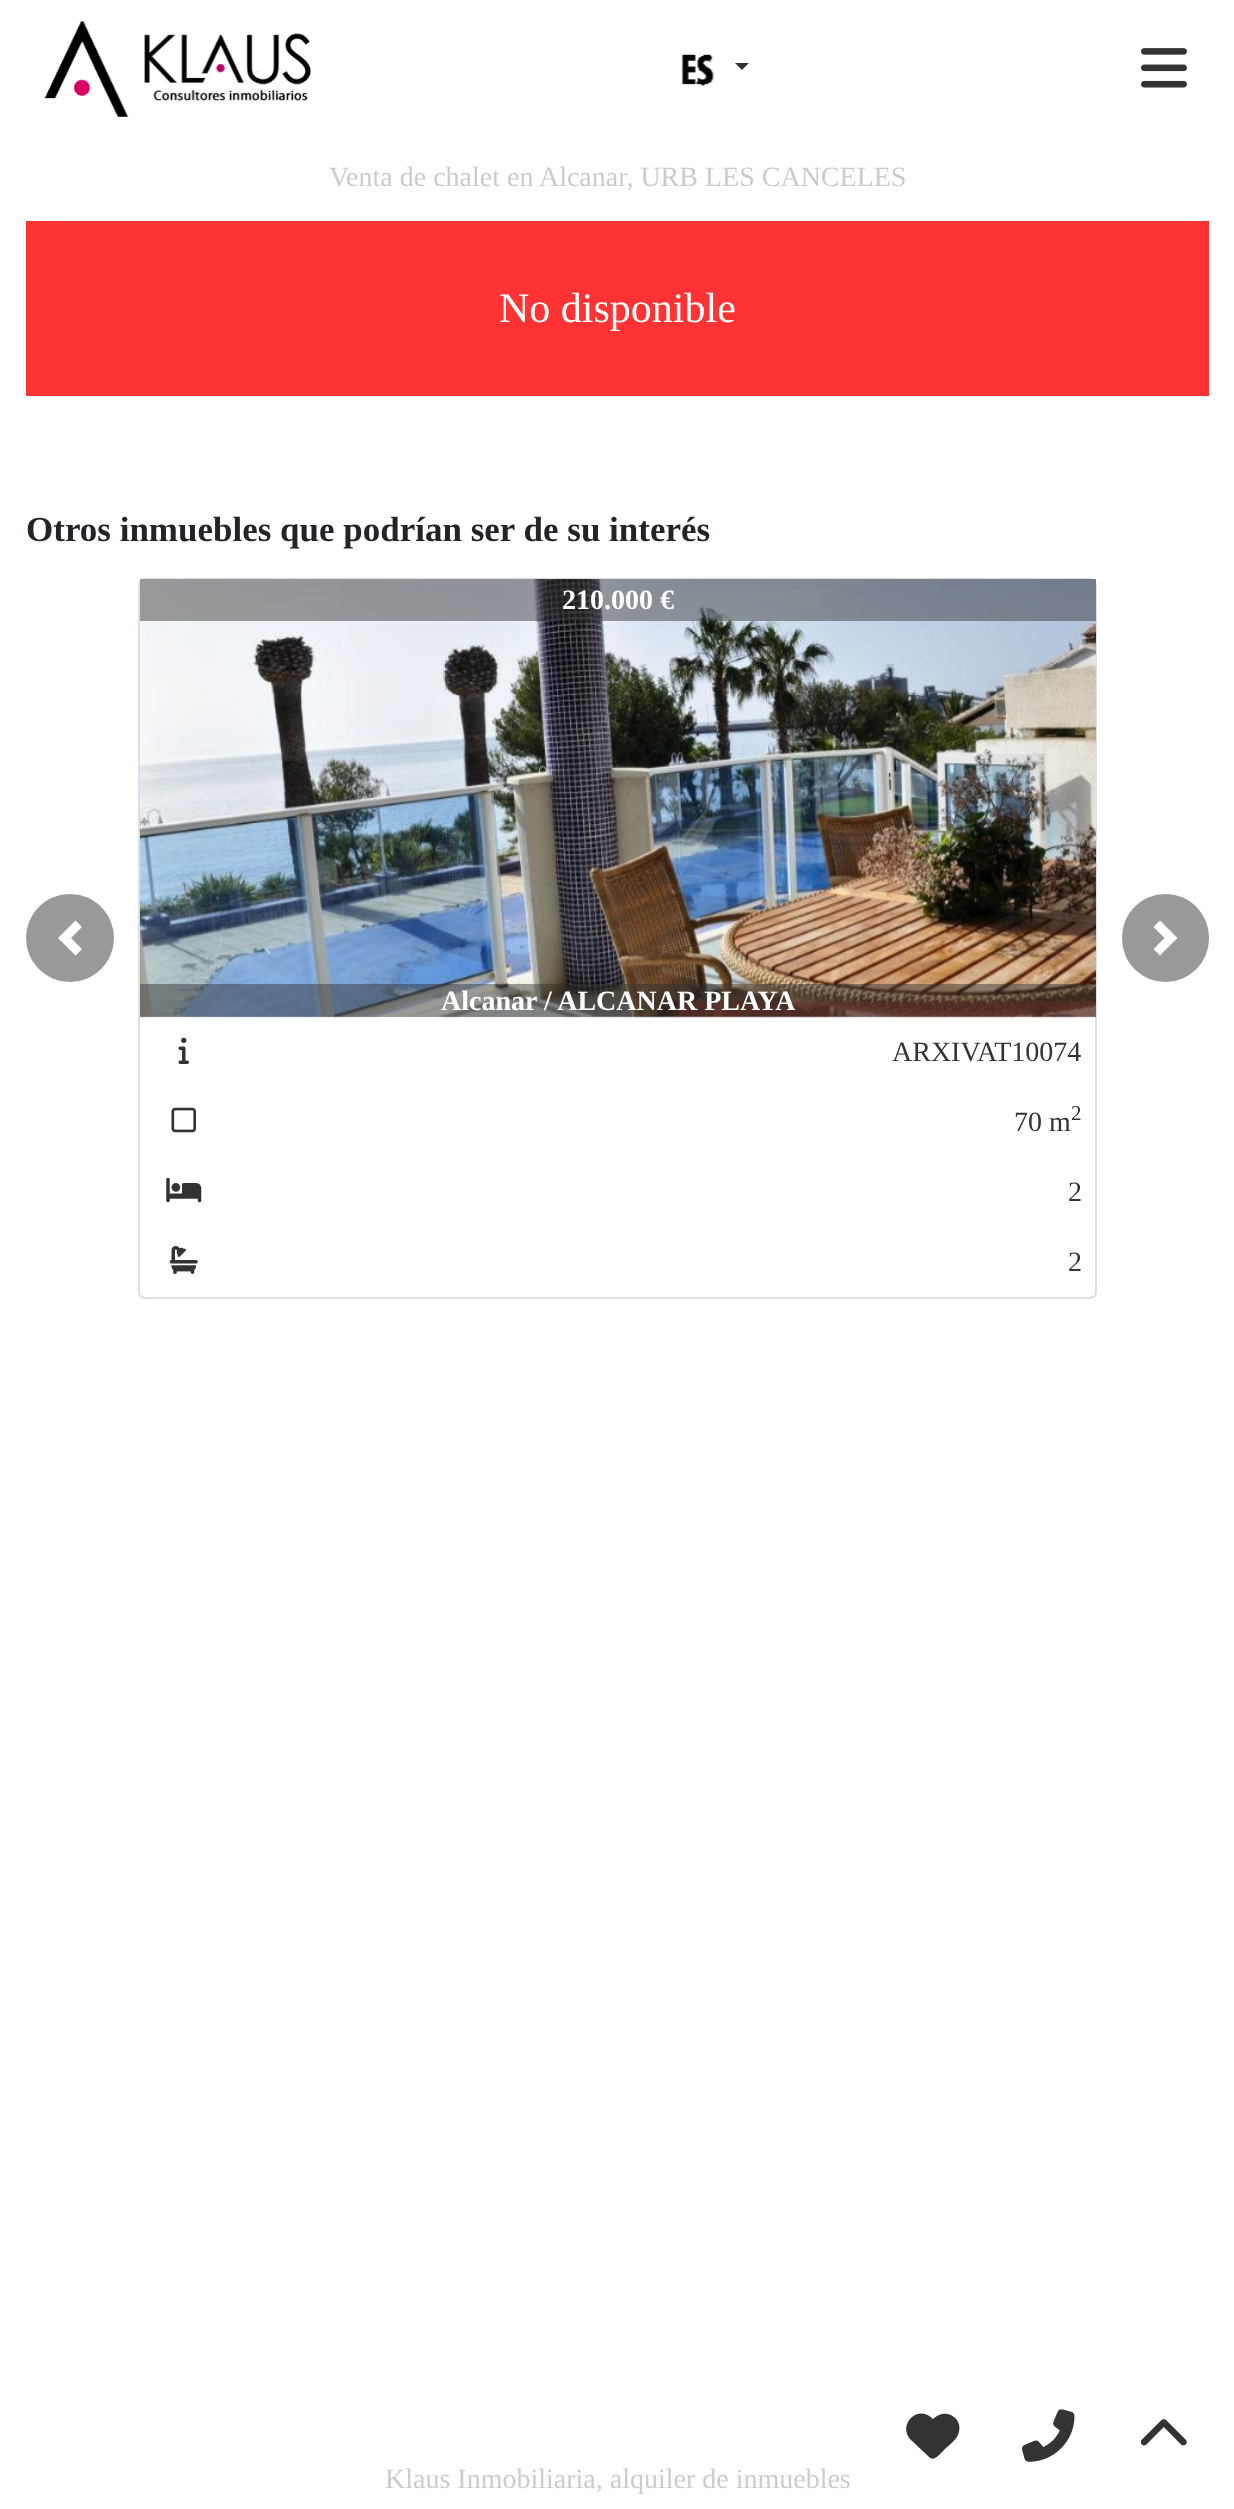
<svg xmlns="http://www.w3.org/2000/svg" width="1234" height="2509">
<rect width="100%" height="100%" fill="#fff"/>
<image x="44" y="20" width="267" height="97" href="media/1.png"/>
<image x="681" y="54" width="33" height="32" href="media/2.png"/>
<path d="M735 63h14l-7 7z" fill="#333"/>
<image x="1141" y="48" width="46" height="40" href="media/3.png"/>
<text x="329" y="186" style="font-family:Liberation Serif;font-size:28px;fill:#ccc">Venta de chalet en Alcanar, URB LES CANCELES</text>
<rect x="26" y="221" width="1183" height="175" fill="#f33"/>
<text x="499" y="322" style="font-family:Liberation Serif;font-size:42px;fill:#fff">No disponible</text>
<text x="26" y="541" style="font-family:Liberation Serif;font-size:35px;font-weight:bold;fill:#212529">Otros inmuebles que podrían ser de su interés</text>
<circle cx="70" cy="938" r="44" fill="#999"/>
<path d="M75.5 920.5l-17.5 17.5l17.5 17.5l6.5-6.5l-11-11l11-11z" fill="#fff"/>
<rect x="139" y="579" width="957" height="719" rx="6" fill="none" stroke="#dfdfdf" stroke-width="2"/>
<image x="140" y="579" width="956" height="439" href="media/4.png"/>
<rect x="140" y="579" width="956" height="42" fill="#33333378"/>
<text x="562" y="609" style="font-family:Liberation Serif;font-size:28px;font-weight:bold;fill:#fff">210.000 €</text>
<rect x="140" y="984" width="956" height="33" fill="#33333378"/>
<text x="441" y="1010" style="font-family:Liberation Serif;font-size:28px;font-weight:bold;fill:#fff">Alcanar / ALCANAR PLAYA</text>
<image x="178" y="1037" width="11" height="27" href="media/5.png"/>
<text x="892" y="1061" style="font-family:Liberation Serif;font-size:28px;fill:#333">ARXIVAT10074</text>
<image x="171" y="1107" width="25" height="26" href="media/6.png"/>
<text x="1014" y="1131" style="font-family:Liberation Serif;font-size:28px;fill:#333">70 m</text>
<text x="1071" y="1120" style="font-family:Liberation Serif;font-size:21px;fill:#333">2</text>
<image x="166" y="1177" width="36" height="26" href="media/7.png"/>
<text x="1068" y="1201" style="font-family:Liberation Serif;font-size:28px;fill:#333">2</text>
<image x="169" y="1246" width="29" height="28" href="media/8.png"/>
<text x="1068" y="1271" style="font-family:Liberation Serif;font-size:28px;fill:#333">2</text>
<rect x="1122" y="894" width="87" height="88" rx="43.5" fill="#999"/>
<path d="M1160 920.5l-6.5 6.5l11 11l-11 11l6.5 6.5l17.5-17.5z" fill="#fff"/>
<path d="M911 2440l19 17l-19-17l16 15c5 5 6 5 12 0l6-6c4-4 10-8 13-14c7-16-12-29-25-16c-16-16-36 7-22 21z" fill="#333"/>
<image x="1022" y="2409" width="53" height="53" href="media/9.png"/>
<image x="1140" y="2419" width="47" height="27" href="media/10.png"/>
<text x="385" y="2488" style="font-family:Liberation Serif;font-size:28px;fill:#ccc">Klaus Inmobiliaria, alquiler de inmuebles</text>
</svg>
